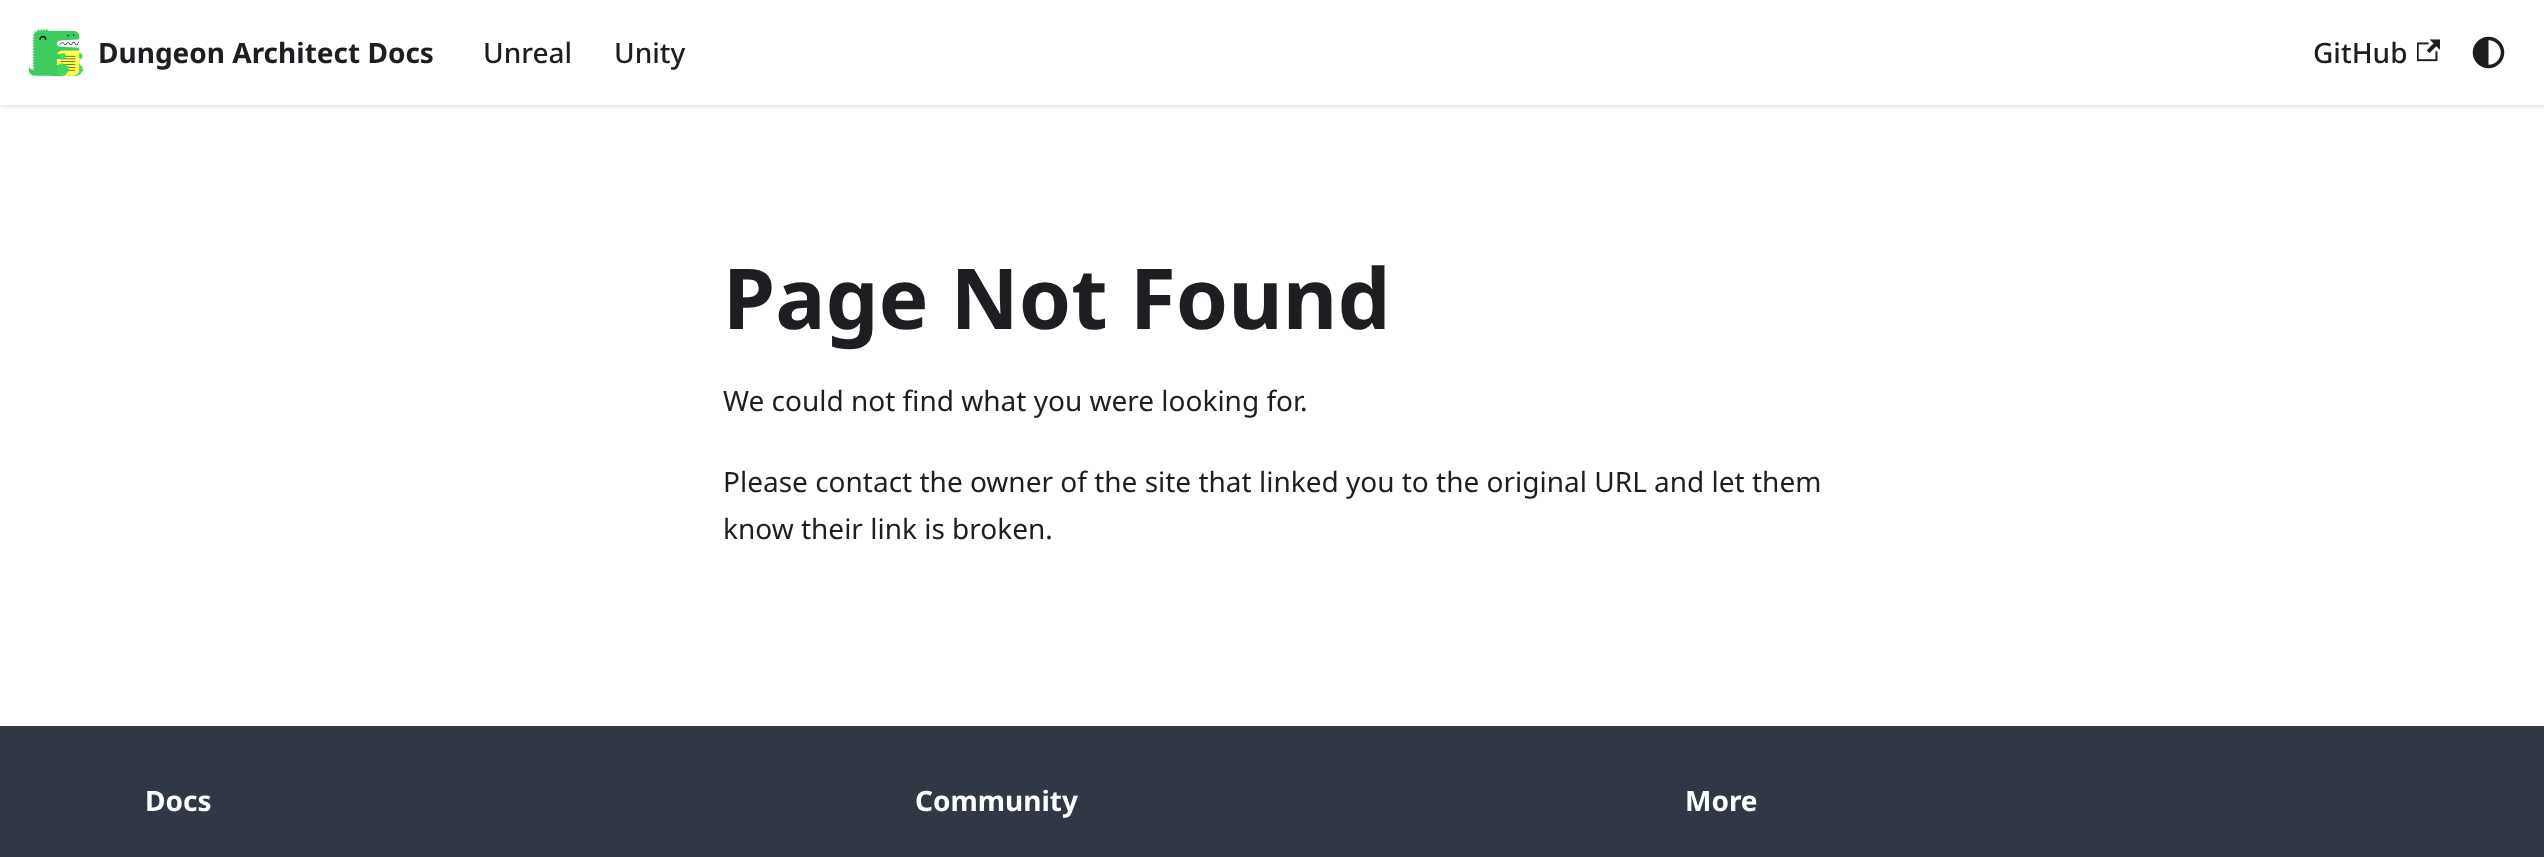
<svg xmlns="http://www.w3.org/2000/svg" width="2544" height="857">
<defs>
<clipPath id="clip1"><rect x="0" y="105" width="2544" height="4"/></clipPath>
</defs>
<rect width="100%" height="100%" fill="#fff"/>
<g clip-path="url(#clip1)">
<rect y="2" width="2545" height="105" fill="#0000001a" filter="blur(2px)"/>
</g>
<image x="28" y="29" width="56" height="47" href="media/1.png"/>
<text x="98" y="63" style="font-family:Noto Sans;font-size:28px;font-weight:bold;fill:#1c1e21">Dungeon Architect Docs</text>
<text x="483" y="63" style="font-family:Noto Sans;font-size:28px;font-weight:500;fill:#1c1e21">Unreal</text>
<text x="614" y="63" style="font-family:Noto Sans;font-size:28px;font-weight:500;fill:#1c1e21">Unity</text>
<text x="2313" y="63" style="font-family:Noto Sans;font-size:28px;font-weight:500;fill:#1c1e21">GitHub</text>
<image x="2417" y="39" width="23" height="23" href="media/2.png"/>
<image x="2472" y="36" width="33" height="33" href="media/3.png"/>
<text x="723" y="329" style="font-family:Noto Sans;font-size:84px;font-weight:bold;fill:#1c1e21">Page Not Found</text>
<text x="723" y="411" style="font-family:Noto Sans;font-size:28px;fill:#1c1e21">We could not find what you were looking for.</text>
<text x="723" y="492" style="font-family:Noto Sans;font-size:28px;fill:#1c1e21">Please contact the owner of the site that linked you to the original URL and let them</text>
<text x="723" y="539" style="font-family:Noto Sans;font-size:28px;fill:#1c1e21">know their link is broken.</text>
<rect y="726" width="2544" height="131" fill="#303846"/>
<text x="145" y="811" style="font-family:Noto Sans;font-size:28px;font-weight:bold;fill:#fff">Docs</text>
<text x="915" y="811" style="font-family:Noto Sans;font-size:28px;font-weight:bold;fill:#fff">Community</text>
<text x="1685" y="811" style="font-family:Noto Sans;font-size:28px;font-weight:bold;fill:#fff">More</text>
</svg>
